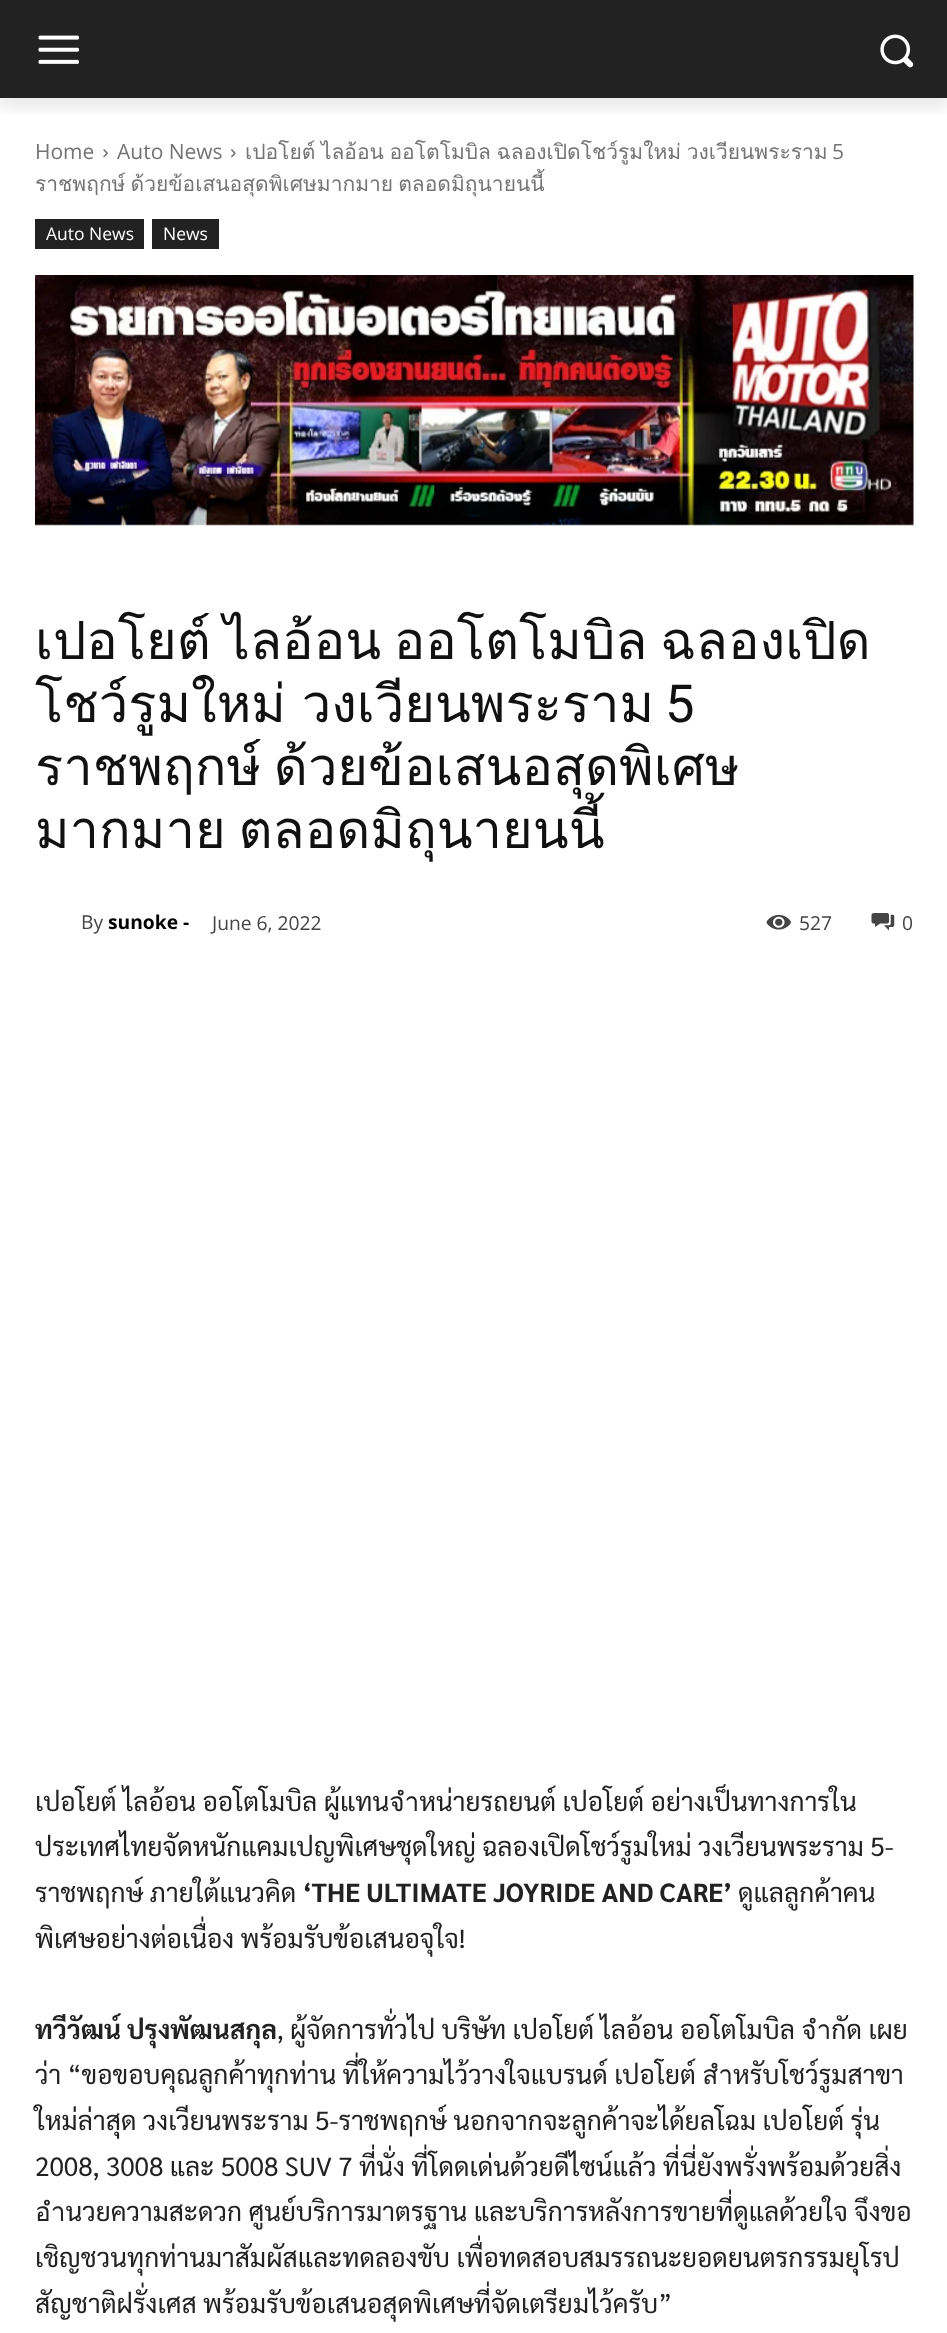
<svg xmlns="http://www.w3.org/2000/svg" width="947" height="2333">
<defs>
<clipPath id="clip1"><rect x="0" y="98" width="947" height="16"/></clipPath>
</defs>
<rect width="100%" height="100%" fill="#fff"/>
<rect width="947" height="98" fill="#222"/>
<image x="38" y="35" width="41" height="29" href="media/1.png"/>
<image x="880" y="34" width="34" height="34" href="media/2.png"/>
<g clip-path="url(#clip1)">
<rect y="11" width="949" height="98" fill="#00000014" filter="blur(7px)"/>
</g>
<text x="35" y="159" style="font-family:Open Sans;font-size:21px;fill:#747474">Home</text>
<image x="103" y="149" width="5" height="9" href="media/3.png"/>
<text x="117" y="159" style="font-family:Open Sans;font-size:21px;fill:#747474">Auto News</text>
<image x="231" y="149" width="5" height="9" href="media/4.png"/>
<text x="245" y="159" word-spacing="-1.5" style="font-family:Loma;font-size:21px;fill:#747474">เปอโยต์ ไลอ้อน ออโตโมบิล ฉลองเปิดโชว์รูมใหม่ วงเวียนพระราม</text>
<text x="832" y="159" style="font-family:Open Sans;font-size:21px;fill:#747474">5</text>
<text x="35" y="191" word-spacing="-2" style="font-family:Loma;font-size:21px;fill:#747474">ราชพฤกษ์ ด้วยข้อเสนอสุดพิเศษมากมาย ตลอดมิถุนายนนี้</text>
<rect x="35" y="219" width="109" height="30" fill="#222"/>
<text x="46" y="240" style="font-family:Open Sans;font-size:17.5px;fill:#fff">Auto News</text>
<rect x="152" y="219" width="67" height="30" fill="#222"/>
<text x="163" y="240" style="font-family:Open Sans;font-size:17.5px;fill:#fff">News</text>
<image x="35" y="275" width="879" height="251" href="media/5.png"/>
<text x="35" y="659" word-spacing="-5" style="font-family:Loma;font-size:52.5px;fill:#111">เปอโยต์ ไลอ้อน ออโตโมบิล ฉลองเปิด</text>
<text x="35" y="722" word-spacing="-2" style="font-family:Loma;font-size:52.5px;fill:#111">โชว์รูมใหม่ วงเวียนพระราม</text>
<text x="665" y="722" style="font-family:Roboto;font-size:52.5px;fill:#111">5</text>
<text x="35" y="785" word-spacing="-5" style="font-family:Loma;font-size:52.5px;fill:#111">ราชพฤกษ์ ด้วยข้อเสนอสุดพิเศษ</text>
<text x="35" y="848" word-spacing="-5" style="font-family:Loma;font-size:52.5px;fill:#111">มากมาย ตลอดมิถุนายนนี้</text>
<text x="81" y="929" style="font-family:Open Sans;font-size:19.25px;fill:#444">By</text>
<text x="108" y="929" style="font-family:Open Sans;font-size:19.25px;font-weight:bold;fill:#000">sunoke -</text>
<text x="212" y="930" style="font-family:Open Sans;font-size:19.25px;fill:#444">June 6, 2022</text>
<image x="766" y="914" width="25" height="16" href="media/6.png"/>
<text x="799" y="930" style="font-family:Open Sans;font-size:19.25px;fill:#444">527</text>
<image x="871" y="913" width="24" height="18" href="media/7.png"/>
<text x="902" y="930" style="font-family:Open Sans;font-size:19.25px;fill:#444">0</text>
<text x="35" y="1811" style="font-family:Sarabun;font-size:26.25px;fill:#222">เปอโยต์ ไลอ้อน ออโตโมบิล ผู้แทนจำหน่ายรถยนต์ เปอโยต์ อย่างเป็นทางการใน</text>
<text x="35" y="1856" style="font-family:Sarabun;font-size:26.25px;fill:#222">ประเทศไทยจัดหนักแคมเปญพิเศษชุดใหญ่ ฉลองเปิดโชว์รูมใหม่ วงเวียนพระราม 5-</text>
<text x="35" y="1902" style="font-family:Sarabun;font-size:26.25px;fill:#222">ราชพฤกษ์ ภายใต้แนวคิด</text>
<text x="303" y="1902" style="font-family:Sarabun;font-size:26.25px;font-weight:bold;fill:#222">‘THE ULTIMATE JOYRIDE AND CARE’</text>
<text x="738" y="1902" style="font-family:Sarabun;font-size:26.25px;fill:#222">ดูแลลูกค้าคน</text>
<text x="35" y="1948" style="font-family:Sarabun;font-size:26.25px;fill:#222">พิเศษอย่างต่อเนื่อง พร้อมรับข้อเสนอจุใจ!</text>
<text x="35" y="2039" style="font-family:Sarabun;font-size:26.25px;font-weight:bold;fill:#222">ทวีวัฒน์ ปรุงพัฒนสกุล</text>
<text x="277" y="2039" style="font-family:Sarabun;font-size:26.25px;fill:#222">, ผู้จัดการทั่วไป บริษัท เปอโยต์ ไลอ้อน ออโตโมบิล จำกัด เผย</text>
<text x="35" y="2084" style="font-family:Sarabun;font-size:26.25px;fill:#222">ว่า “ขอขอบคุณลูกค้าทุกท่าน ที่ให้ความไว้วางใจแบรนด์ เปอโยต์ สำหรับโชว์รูมสาขา</text>
<text x="35" y="2130" style="font-family:Sarabun;font-size:26.25px;fill:#222">ใหม่ล่าสุด วงเวียนพระราม 5-ราชพฤกษ์ นอกจากจะลูกค้าจะได้ยลโฉม เปอโยต์ รุ่น</text>
<text x="35" y="2176" style="font-family:Sarabun;font-size:26.25px;fill:#222">2008, 3008 และ 5008 SUV 7 ที่นั่ง ที่โดดเด่นด้วยดีไซน์แล้ว ที่นี่ยังพรั่งพร้อมด้วยสิ่ง</text>
<text x="35" y="2221" style="font-family:Sarabun;font-size:26.25px;fill:#222">อำนวยความสะดวก ศูนย์บริการมาตรฐาน และบริการหลังการขายที่ดูแลด้วยใจ จึงขอ</text>
<text x="35" y="2267" style="font-family:Sarabun;font-size:26.25px;fill:#222">เชิญชวนทุกท่านมาสัมผัสและทดลองขับ เพื่อทดสอบสมรรถนะยอดยนตรกรรมยุโรป</text>
<text x="35" y="2313" style="font-family:Sarabun;font-size:26.25px;fill:#222">สัญชาติฝรั่งเศส พร้อมรับข้อเสนอสุดพิเศษที่จัดเตรียมไว้ครับ”</text>
</svg>
